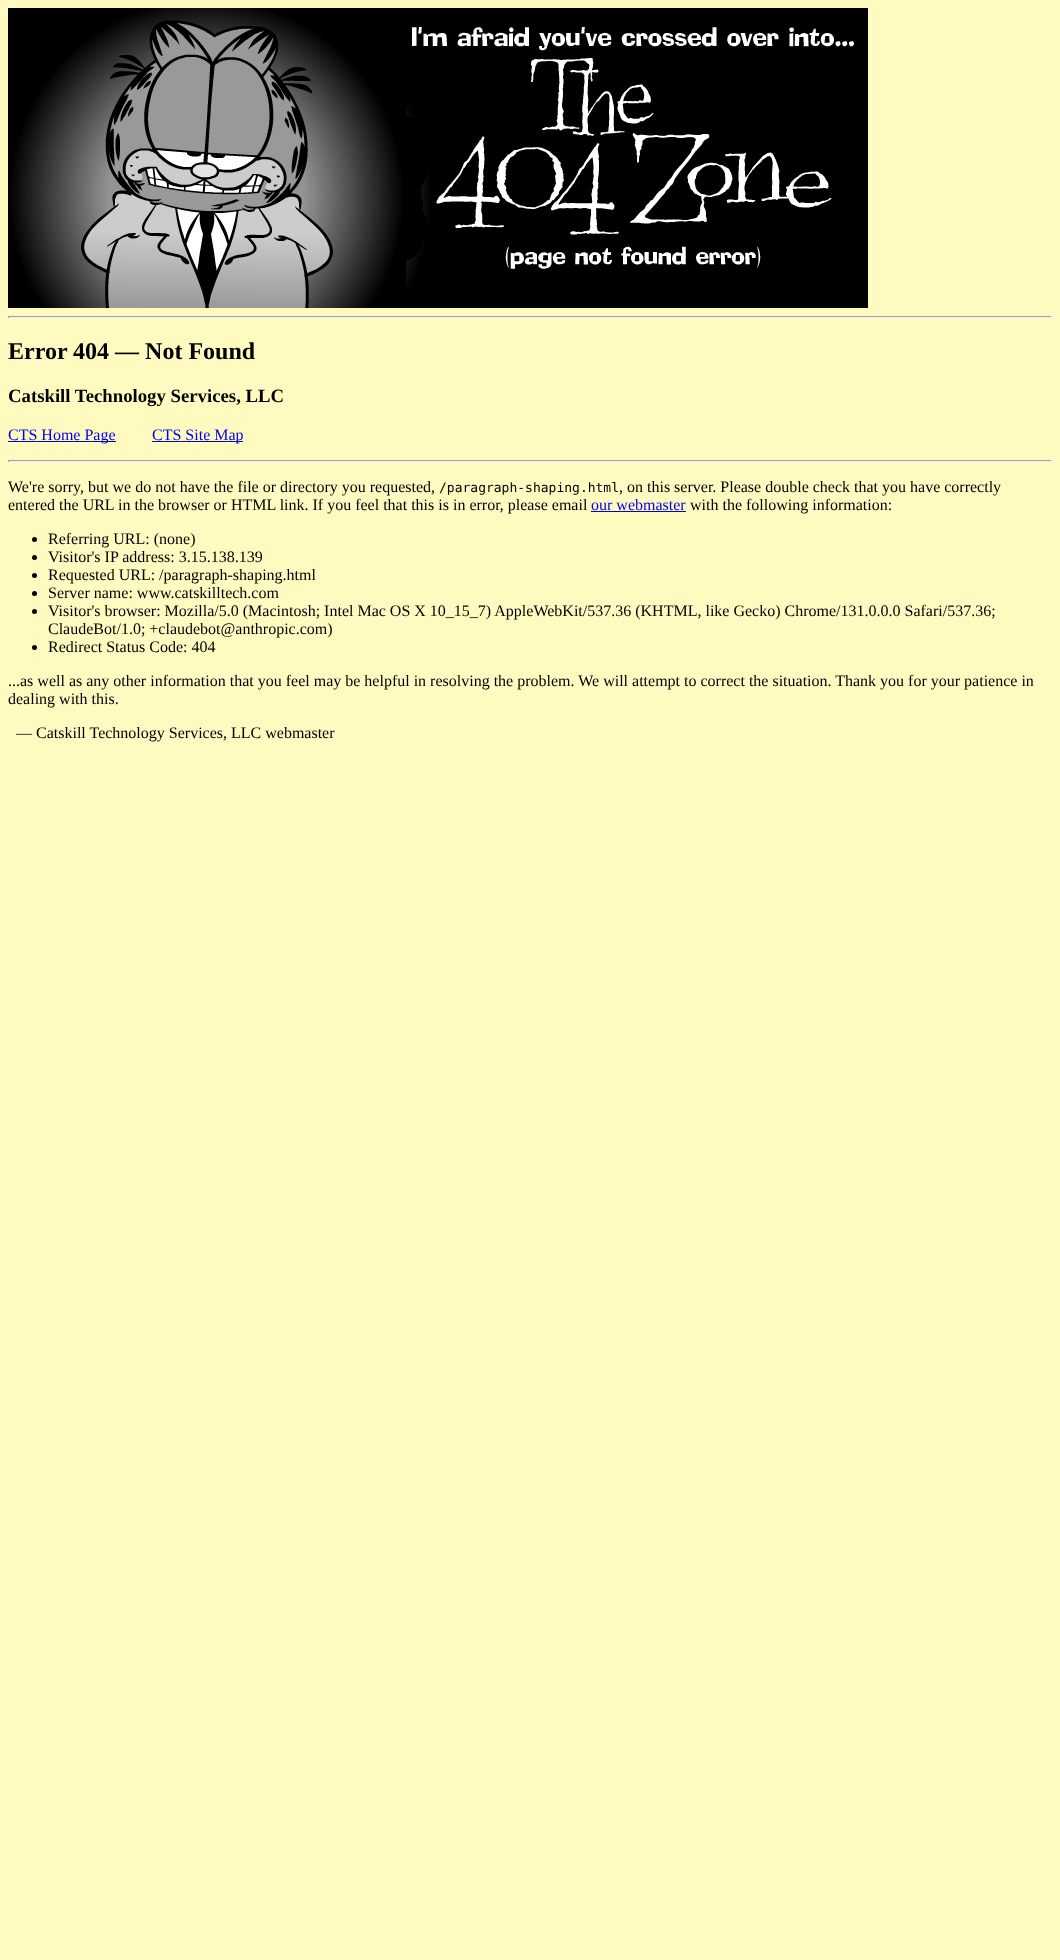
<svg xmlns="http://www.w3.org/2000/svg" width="1060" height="1960">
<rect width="100%" height="100%" fill="#fffbc0"/>
<image x="8" y="8" width="398" height="300" href="media/1.png"/>
<image x="406" y="8" width="462" height="300" href="media/2.png"/>
<rect x="8" y="316" width="1044" height="1" fill="#9f9f9f"/>
<rect x="1051" y="316" width="1" height="2" fill="#eee"/>
<rect x="8" y="317" width="1044" height="1" fill="#eee"/>
<rect x="8" y="316" width="1" height="2" fill="#9f9f9f"/>
<text x="8" y="359" style="font-family:Liberation Serif;font-size:24px;font-weight:bold;fill:#000">Error 404 — Not Found</text>
<text x="8" y="402" style="font-family:Liberation Serif;font-size:18.75px;font-weight:bold;fill:#000">Catskill Technology Services, LLC</text>
<rect x="8" y="441" width="108" height="1" fill="#00e"/>
<text x="8" y="440" style="font-family:Liberation Serif;font-size:16px;fill:#00e">CTS Home Page</text>
<rect x="152" y="441" width="91" height="1" fill="#00e"/>
<text x="152" y="440" style="font-family:Liberation Serif;font-size:16px;fill:#00e">CTS Site Map</text>
<rect x="8" y="460" width="1044" height="1" fill="#9f9f9f"/>
<rect x="1051" y="460" width="1" height="2" fill="#eee"/>
<rect x="8" y="461" width="1044" height="1" fill="#eee"/>
<rect x="8" y="460" width="1" height="2" fill="#9f9f9f"/>
<text x="8" y="492" style="font-family:Liberation Serif;font-size:16px;fill:#000">We're sorry, but we do not have the file or directory you requested,</text>
<text x="439" y="492" style="font-family:DejaVu Sans Mono;font-size:13px;fill:#000">/paragraph-shaping.html</text>
<text x="619" y="492" style="font-family:Liberation Serif;font-size:16px;fill:#000">, on this server. Please double check that you have correctly</text>
<text x="8" y="510" style="font-family:Liberation Serif;font-size:16px;fill:#000">entered the URL in the browser or HTML link. If you feel that this is in error, please email</text>
<text x="591" y="510" style="font-family:Liberation Serif;font-size:16px;fill:#00e">our webmaster</text>
<rect x="591" y="511" width="95" height="1" fill="#00e"/>
<text x="690" y="510" style="font-family:Liberation Serif;font-size:16px;fill:#000">with the following information:</text>
<circle cx="34.5" cy="539.5" r="2.5" fill="#000"/>
<text x="48" y="544" style="font-family:Liberation Serif;font-size:16px;fill:#000">Referring URL: (none)</text>
<circle cx="34.5" cy="557.5" r="2.5" fill="#000"/>
<text x="48" y="562" style="font-family:Liberation Serif;font-size:16px;fill:#000">Visitor's IP address: 3.15.138.139</text>
<circle cx="34.5" cy="575.5" r="2.5" fill="#000"/>
<text x="48" y="580" style="font-family:Liberation Serif;font-size:16px;fill:#000">Requested URL: /paragraph-shaping.html</text>
<circle cx="34.5" cy="593.5" r="2.5" fill="#000"/>
<text x="48" y="598" style="font-family:Liberation Serif;font-size:16px;fill:#000">Server name: www.catskilltech.com</text>
<circle cx="34.5" cy="611.5" r="2.5" fill="#000"/>
<text x="48" y="616" style="font-family:Liberation Serif;font-size:16px;fill:#000">Visitor's browser: Mozilla/5.0 (Macintosh; Intel Mac OS X 10_15_7) AppleWebKit/537.36 (KHTML, like Gecko) Chrome/131.0.0.0 Safari/537.36;</text>
<text x="48" y="634" style="font-family:Liberation Serif;font-size:16px;fill:#000">ClaudeBot/1.0; +claudebot@anthropic.com)</text>
<circle cx="34.5" cy="647.5" r="2.5" fill="#000"/>
<text x="48" y="652" style="font-family:Liberation Serif;font-size:16px;fill:#000">Redirect Status Code: 404</text>
<text x="8" y="686" style="font-family:Liberation Serif;font-size:16px;fill:#000">...as well as any other information that you feel may be helpful in resolving the problem. We will attempt to correct the situation. Thank you for your patience in</text>
<text x="8" y="704" style="font-family:Liberation Serif;font-size:16px;fill:#000">dealing with this.</text>
<text x="16" y="738" style="font-family:Liberation Serif;font-size:16px;fill:#000">— Catskill Technology Services, LLC webmaster</text>
</svg>
